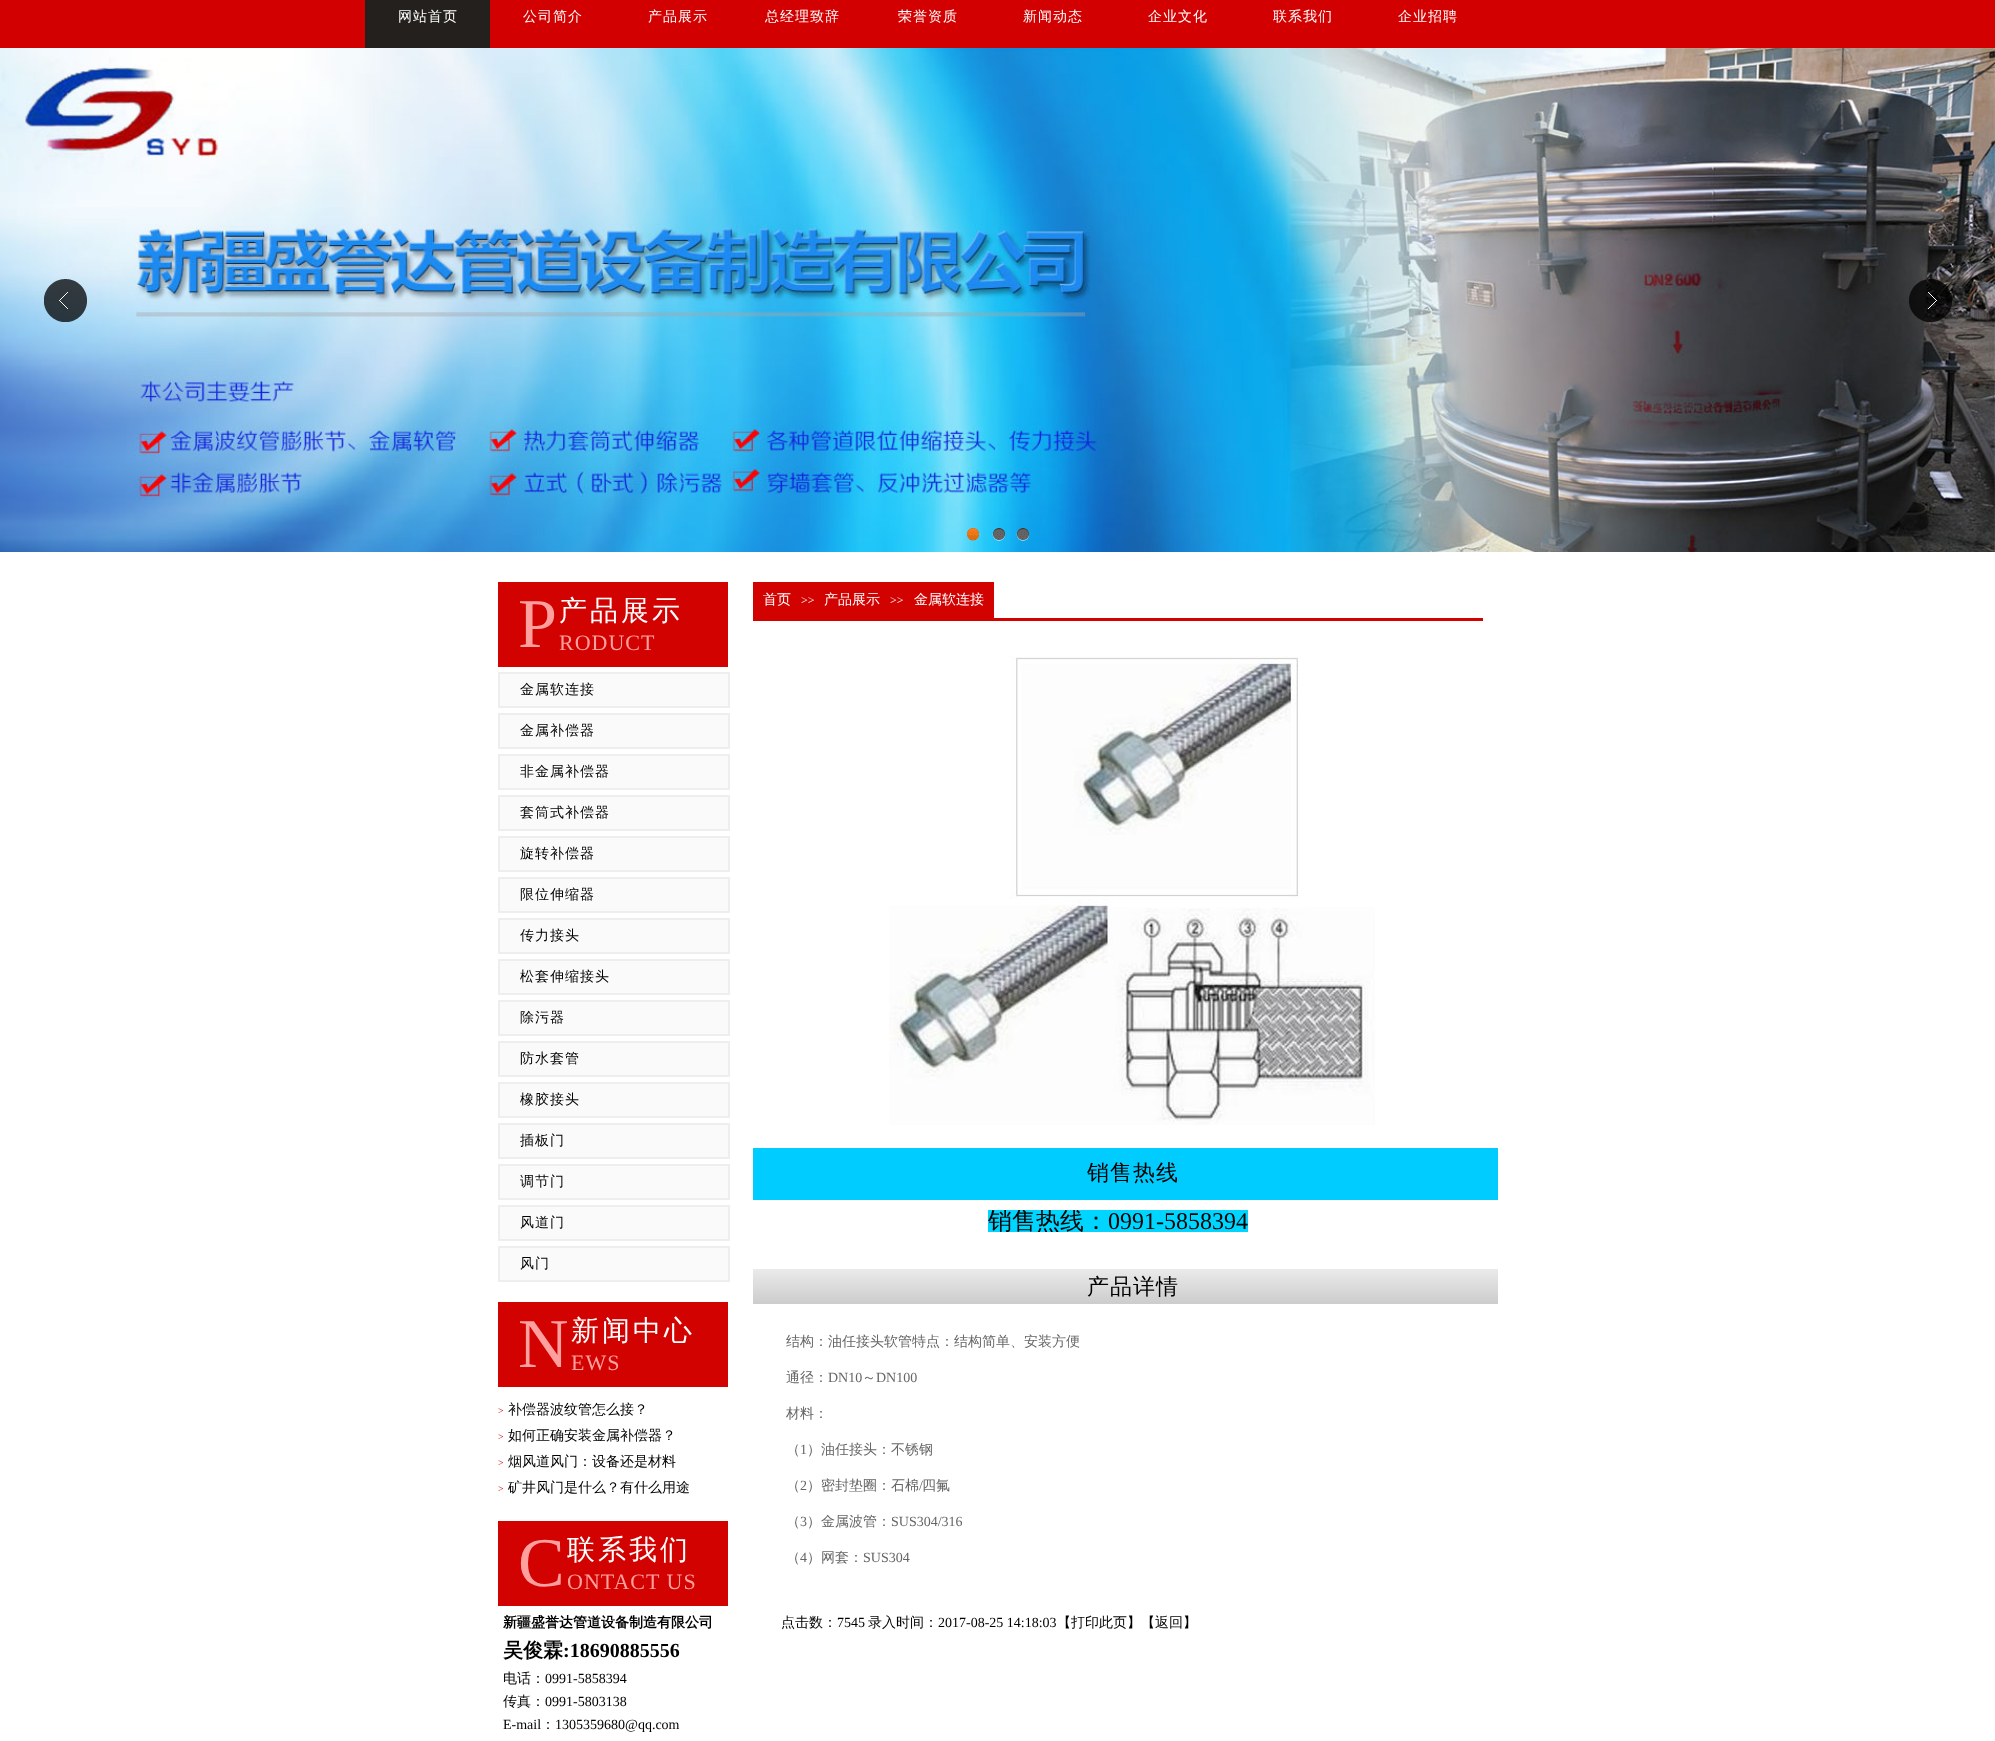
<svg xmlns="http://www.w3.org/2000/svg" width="1995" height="1741">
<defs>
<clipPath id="clip1"><rect x="753" y="1210" width="730" height="22"/></clipPath>
</defs>
<rect width="100%" height="100%" fill="#fff"/>
<rect width="1995" height="48" fill="#d20000"/>
<rect x="365" width="125" height="48" fill="#23201d"/>
<text x="398" y="21" style="font-family:WenQuanYi Zen Hei;font-size:14px;font-weight:500;letter-spacing:1px;fill:#fff">网站首页</text>
<text x="523" y="21" style="font-family:WenQuanYi Zen Hei;font-size:14px;font-weight:500;letter-spacing:1px;fill:#fff">公司简介</text>
<text x="648" y="21" style="font-family:WenQuanYi Zen Hei;font-size:14px;font-weight:500;letter-spacing:1px;fill:#fff">产品展示</text>
<text x="765" y="21" style="font-family:WenQuanYi Zen Hei;font-size:14px;font-weight:500;letter-spacing:1px;fill:#fff">总经理致辞</text>
<text x="898" y="21" style="font-family:WenQuanYi Zen Hei;font-size:14px;font-weight:500;letter-spacing:1px;fill:#fff">荣誉资质</text>
<text x="1023" y="21" style="font-family:WenQuanYi Zen Hei;font-size:14px;font-weight:500;letter-spacing:1px;fill:#fff">新闻动态</text>
<text x="1148" y="21" style="font-family:WenQuanYi Zen Hei;font-size:14px;font-weight:500;letter-spacing:1px;fill:#fff">企业文化</text>
<text x="1273" y="21" style="font-family:WenQuanYi Zen Hei;font-size:14px;font-weight:500;letter-spacing:1px;fill:#fff">联系我们</text>
<text x="1398" y="21" style="font-family:WenQuanYi Zen Hei;font-size:14px;font-weight:500;letter-spacing:1px;fill:#fff">企业招聘</text>
<image x="0" y="48" width="1995" height="504" href="media/1.png"/>
<image x="44" y="279" width="43" height="43" href="media/2.png"/>
<image x="1909" y="279" width="43" height="43" href="media/3.png"/>
<image x="967" y="528" width="14" height="13" href="media/4.png"/>
<image x="992" y="528" width="13" height="13" href="media/5.png"/>
<image x="1016" y="528" width="13" height="13" href="media/6.png"/>
<rect x="498" y="582" width="230" height="85" fill="#d10200"/>
<text x="518" y="647" style="font-family:Liberation Serif;font-size:70px;letter-spacing:1px;fill:#ff9f9e">P</text>
<text x="559" y="620" style="font-family:WenQuanYi Zen Hei;font-size:28px;font-weight:500;letter-spacing:3px;fill:#fff">产品展示</text>
<text x="559" y="650" style="font-family:Liberation Serif;font-size:22px;letter-spacing:1px;fill:#ff9f9e">RODUCT</text>
<rect x="500" y="674" width="228" height="32" fill="#fafafa"/>
<rect x="498.5" y="672.5" width="231" height="35" fill="none" stroke="#eee"/>
<rect x="499.5" y="673.5" width="229" height="33" fill="none" stroke="#eee"/>
<text x="520" y="694" style="font-family:WenQuanYi Zen Hei;font-size:14px;font-weight:500;letter-spacing:1px;fill:#000">金属软连接</text>
<rect x="500" y="715" width="228" height="32" fill="#fafafa"/>
<rect x="498.5" y="713.5" width="231" height="35" fill="none" stroke="#eee"/>
<rect x="499.5" y="714.5" width="229" height="33" fill="none" stroke="#eee"/>
<text x="520" y="735" style="font-family:WenQuanYi Zen Hei;font-size:14px;font-weight:500;letter-spacing:1px;fill:#000">金属补偿器</text>
<rect x="500" y="756" width="228" height="32" fill="#fafafa"/>
<rect x="498.5" y="754.5" width="231" height="35" fill="none" stroke="#eee"/>
<rect x="499.5" y="755.5" width="229" height="33" fill="none" stroke="#eee"/>
<text x="520" y="776" style="font-family:WenQuanYi Zen Hei;font-size:14px;font-weight:500;letter-spacing:1px;fill:#000">非金属补偿器</text>
<rect x="500" y="797" width="228" height="32" fill="#fafafa"/>
<rect x="498.5" y="795.5" width="231" height="35" fill="none" stroke="#eee"/>
<rect x="499.5" y="796.5" width="229" height="33" fill="none" stroke="#eee"/>
<text x="520" y="817" style="font-family:WenQuanYi Zen Hei;font-size:14px;font-weight:500;letter-spacing:1px;fill:#000">套筒式补偿器</text>
<rect x="500" y="838" width="228" height="32" fill="#fafafa"/>
<rect x="498.5" y="836.5" width="231" height="35" fill="none" stroke="#eee"/>
<rect x="499.5" y="837.5" width="229" height="33" fill="none" stroke="#eee"/>
<text x="520" y="858" style="font-family:WenQuanYi Zen Hei;font-size:14px;font-weight:500;letter-spacing:1px;fill:#000">旋转补偿器</text>
<rect x="500" y="879" width="228" height="32" fill="#fafafa"/>
<rect x="498.5" y="877.5" width="231" height="35" fill="none" stroke="#eee"/>
<rect x="499.5" y="878.5" width="229" height="33" fill="none" stroke="#eee"/>
<text x="520" y="899" style="font-family:WenQuanYi Zen Hei;font-size:14px;font-weight:500;letter-spacing:1px;fill:#000">限位伸缩器</text>
<rect x="500" y="920" width="228" height="32" fill="#fafafa"/>
<rect x="498.5" y="918.5" width="231" height="35" fill="none" stroke="#eee"/>
<rect x="499.5" y="919.5" width="229" height="33" fill="none" stroke="#eee"/>
<text x="520" y="940" style="font-family:WenQuanYi Zen Hei;font-size:14px;font-weight:500;letter-spacing:1px;fill:#000">传力接头</text>
<rect x="500" y="961" width="228" height="32" fill="#fafafa"/>
<rect x="498.5" y="959.5" width="231" height="35" fill="none" stroke="#eee"/>
<rect x="499.5" y="960.5" width="229" height="33" fill="none" stroke="#eee"/>
<text x="520" y="981" style="font-family:WenQuanYi Zen Hei;font-size:14px;font-weight:500;letter-spacing:1px;fill:#000">松套伸缩接头</text>
<rect x="500" y="1002" width="228" height="32" fill="#fafafa"/>
<rect x="498.5" y="1000.5" width="231" height="35" fill="none" stroke="#eee"/>
<rect x="499.5" y="1001.5" width="229" height="33" fill="none" stroke="#eee"/>
<text x="520" y="1022" style="font-family:WenQuanYi Zen Hei;font-size:14px;font-weight:500;letter-spacing:1px;fill:#000">除污器</text>
<rect x="500" y="1043" width="228" height="32" fill="#fafafa"/>
<rect x="498.5" y="1041.5" width="231" height="35" fill="none" stroke="#eee"/>
<rect x="499.5" y="1042.5" width="229" height="33" fill="none" stroke="#eee"/>
<text x="520" y="1063" style="font-family:WenQuanYi Zen Hei;font-size:14px;font-weight:500;letter-spacing:1px;fill:#000">防水套管</text>
<rect x="500" y="1084" width="228" height="32" fill="#fafafa"/>
<rect x="498.5" y="1082.5" width="231" height="35" fill="none" stroke="#eee"/>
<rect x="499.5" y="1083.5" width="229" height="33" fill="none" stroke="#eee"/>
<text x="520" y="1104" style="font-family:WenQuanYi Zen Hei;font-size:14px;font-weight:500;letter-spacing:1px;fill:#000">橡胶接头</text>
<rect x="500" y="1125" width="228" height="32" fill="#fafafa"/>
<rect x="498.5" y="1123.5" width="231" height="35" fill="none" stroke="#eee"/>
<rect x="499.5" y="1124.5" width="229" height="33" fill="none" stroke="#eee"/>
<text x="520" y="1145" style="font-family:WenQuanYi Zen Hei;font-size:14px;font-weight:500;letter-spacing:1px;fill:#000">插板门</text>
<rect x="500" y="1166" width="228" height="32" fill="#fafafa"/>
<rect x="498.5" y="1164.5" width="231" height="35" fill="none" stroke="#eee"/>
<rect x="499.5" y="1165.5" width="229" height="33" fill="none" stroke="#eee"/>
<text x="520" y="1186" style="font-family:WenQuanYi Zen Hei;font-size:14px;font-weight:500;letter-spacing:1px;fill:#000">调节门</text>
<rect x="500" y="1207" width="228" height="32" fill="#fafafa"/>
<rect x="498.5" y="1205.5" width="231" height="35" fill="none" stroke="#eee"/>
<rect x="499.5" y="1206.5" width="229" height="33" fill="none" stroke="#eee"/>
<text x="520" y="1227" style="font-family:WenQuanYi Zen Hei;font-size:14px;font-weight:500;letter-spacing:1px;fill:#000">风道门</text>
<rect x="500" y="1248" width="228" height="32" fill="#fafafa"/>
<rect x="498.5" y="1246.5" width="231" height="35" fill="none" stroke="#eee"/>
<rect x="499.5" y="1247.5" width="229" height="33" fill="none" stroke="#eee"/>
<text x="520" y="1268" style="font-family:WenQuanYi Zen Hei;font-size:14px;font-weight:500;letter-spacing:1px;fill:#000">风门</text>
<rect x="498" y="1302" width="230" height="85" fill="#d10200"/>
<text x="518" y="1367" style="font-family:Liberation Serif;font-size:70px;letter-spacing:1px;fill:#ff9f9e">N</text>
<text x="571" y="1340" style="font-family:WenQuanYi Zen Hei;font-size:28px;font-weight:500;letter-spacing:3px;fill:#fff">新闻中心</text>
<text x="571" y="1370" style="font-family:Liberation Serif;font-size:22px;letter-spacing:1px;fill:#ff9f9e">EWS</text>
<text x="498" y="1414" style="font-family:Liberation Serif;font-size:10px;fill:#d10200">&gt;</text>
<text x="508" y="1414" style="font-family:WenQuanYi Zen Hei;font-size:14px;font-weight:500;fill:#000">补偿器波纹管怎么接？</text>
<text x="498" y="1440" style="font-family:Liberation Serif;font-size:10px;fill:#d10200">&gt;</text>
<text x="508" y="1440" style="font-family:WenQuanYi Zen Hei;font-size:14px;font-weight:500;fill:#000">如何正确安装金属补偿器？</text>
<text x="498" y="1466" style="font-family:Liberation Serif;font-size:10px;fill:#d10200">&gt;</text>
<text x="508" y="1466" style="font-family:WenQuanYi Zen Hei;font-size:14px;font-weight:500;fill:#000">烟风道风门：设备还是材料</text>
<text x="498" y="1492" style="font-family:Liberation Serif;font-size:10px;fill:#d10200">&gt;</text>
<text x="508" y="1492" style="font-family:WenQuanYi Zen Hei;font-size:14px;font-weight:500;fill:#000">矿井风门是什么？有什么用途</text>
<rect x="498" y="1521" width="230" height="85" fill="#d10200"/>
<text x="518" y="1586" style="font-family:Liberation Serif;font-size:70px;letter-spacing:1px;fill:#ff9f9e">C</text>
<text x="567" y="1559" style="font-family:WenQuanYi Zen Hei;font-size:28px;font-weight:500;letter-spacing:3px;fill:#fff">联系我们</text>
<text x="567" y="1589" style="font-family:Liberation Serif;font-size:22px;letter-spacing:1px;fill:#ff9f9e">ONTACT US</text>
<text x="503" y="1627" style="font-family:WenQuanYi Zen Hei;font-size:14px;font-weight:bold;fill:#000">新疆盛誉达管道设备制造有限公司</text>
<text x="503" y="1657" style="font-family:WenQuanYi Zen Hei;font-size:20px;font-weight:bold;fill:#000">吴俊霖</text>
<text x="563" y="1657" style="font-family:Liberation Serif;font-size:20px;font-weight:bold;fill:#000">:18690885556</text>
<text x="503" y="1683" style="font-family:WenQuanYi Zen Hei;font-size:14px;font-weight:500;fill:#000">电话：</text>
<text x="545" y="1683" style="font-family:Liberation Serif;font-size:14px;fill:#000">0991-5858394</text>
<text x="503" y="1706" style="font-family:WenQuanYi Zen Hei;font-size:14px;font-weight:500;fill:#000">传真：</text>
<text x="545" y="1706" style="font-family:Liberation Serif;font-size:14px;fill:#000">0991-5803138</text>
<text x="503" y="1729" style="font-family:Liberation Serif;font-size:14px;fill:#000">E-mail</text>
<text x="541" y="1729" style="font-family:WenQuanYi Zen Hei;font-size:14px;font-weight:500;fill:#000">：</text>
<text x="555" y="1729" style="font-family:Liberation Serif;font-size:14px;fill:#000">1305359680@qq.com</text>
<rect x="753" y="618" width="730" height="3" fill="#d10200"/>
<rect x="753" y="582" width="241" height="36" fill="#d10200"/>
<text x="763" y="604" style="font-family:WenQuanYi Zen Hei;font-size:14px;font-weight:500;fill:#fff">首页</text>
<text x="801" y="604" style="font-family:Liberation Serif;font-size:12px;fill:#fff">&gt;&gt;</text>
<text x="824" y="604" style="font-family:WenQuanYi Zen Hei;font-size:14px;font-weight:500;fill:#fff">产品展示</text>
<text x="890" y="604" style="font-family:Liberation Serif;font-size:12px;fill:#fff">&gt;&gt;</text>
<text x="914" y="604" style="font-family:WenQuanYi Zen Hei;font-size:14px;font-weight:500;fill:#fff">金属软连接</text>
<image x="889" y="656" width="486" height="469" href="media/7.png"/>
<rect x="753" y="1148" width="745" height="52" fill="#0cf"/>
<text x="1087" y="1180" style="font-family:WenQuanYi Zen Hei;font-size:22px;font-weight:500;letter-spacing:1px;fill:#000">销售热线</text>
<rect x="988" y="1210" width="260" height="22" fill="#00d5ff"/>
<g clip-path="url(#clip1)">
<text x="988" y="1229" style="font-family:WenQuanYi Zen Hei;font-size:24px;font-weight:500;fill:#000">销售热线</text>
</g>
<text x="1084" y="1229" style="font-family:WenQuanYi Zen Hei;font-size:24px;font-weight:500;fill:#000">：</text>
<text x="1108" y="1229" style="font-family:Liberation Serif;font-size:24px;fill:#000">0991-5858394</text>
<image x="753" y="1269" width="745" height="35" href="media/8.png"/>
<text x="1087" y="1294" style="font-family:WenQuanYi Zen Hei;font-size:22px;font-weight:500;letter-spacing:1px;fill:#000">产品详情</text>
<text x="786" y="1346" style="font-family:WenQuanYi Zen Hei;font-size:14px;font-weight:500;fill:#666">结构：油任接头软管特点：结构简单、安装方便</text>
<text x="786" y="1382" style="font-family:WenQuanYi Zen Hei;font-size:14px;font-weight:500;fill:#666">通径：</text>
<text x="828" y="1382" style="font-family:Liberation Serif;font-size:14px;fill:#666">DN10</text>
<text x="862" y="1382" style="font-family:WenQuanYi Zen Hei;font-size:14px;font-weight:500;fill:#666">～</text>
<text x="876" y="1382" style="font-family:Liberation Serif;font-size:14px;fill:#666">DN100</text>
<text x="786" y="1418" style="font-family:WenQuanYi Zen Hei;font-size:14px;font-weight:500;fill:#666">材料：</text>
<text x="786" y="1454" style="font-family:WenQuanYi Zen Hei;font-size:14px;font-weight:500;fill:#666">（</text>
<text x="800" y="1454" style="font-family:Liberation Serif;font-size:14px;fill:#666">1</text>
<text x="807" y="1454" style="font-family:WenQuanYi Zen Hei;font-size:14px;font-weight:500;fill:#666">）油任接头：不锈钢</text>
<text x="786" y="1490" style="font-family:WenQuanYi Zen Hei;font-size:14px;font-weight:500;fill:#666">（</text>
<text x="800" y="1490" style="font-family:Liberation Serif;font-size:14px;fill:#666">2</text>
<text x="807" y="1490" style="font-family:WenQuanYi Zen Hei;font-size:14px;font-weight:500;fill:#666">）密封垫圈：石棉</text>
<text x="919" y="1490" style="font-family:Liberation Serif;font-size:14px;fill:#666">/</text>
<text x="922" y="1490" style="font-family:WenQuanYi Zen Hei;font-size:14px;font-weight:500;fill:#666">四氟</text>
<text x="786" y="1526" style="font-family:WenQuanYi Zen Hei;font-size:14px;font-weight:500;fill:#666">（</text>
<text x="800" y="1526" style="font-family:Liberation Serif;font-size:14px;fill:#666">3</text>
<text x="807" y="1526" style="font-family:WenQuanYi Zen Hei;font-size:14px;font-weight:500;fill:#666">）金属波管：</text>
<text x="891" y="1526" style="font-family:Liberation Serif;font-size:14px;fill:#666">SUS304/316</text>
<text x="786" y="1562" style="font-family:WenQuanYi Zen Hei;font-size:14px;font-weight:500;fill:#666">（</text>
<text x="800" y="1562" style="font-family:Liberation Serif;font-size:14px;fill:#666">4</text>
<text x="807" y="1562" style="font-family:WenQuanYi Zen Hei;font-size:14px;font-weight:500;fill:#666">）网套：</text>
<text x="863" y="1562" style="font-family:Liberation Serif;font-size:14px;fill:#666">SUS304</text>
<text x="781" y="1627" style="font-family:WenQuanYi Zen Hei;font-size:14px;font-weight:500;fill:#000">点击数：</text>
<text x="837" y="1627" style="font-family:Liberation Serif;font-size:14px;fill:#000">7545</text>
<text x="868" y="1627" style="font-family:WenQuanYi Zen Hei;font-size:14px;font-weight:500;fill:#000">录入时间：</text>
<text x="938" y="1627" style="font-family:Liberation Serif;font-size:14px;fill:#000">2017-08-25 14:18:03</text>
<text x="1057" y="1627" style="font-family:WenQuanYi Zen Hei;font-size:14px;font-weight:500;fill:#000">【打印此页】【返回】</text>
</svg>
